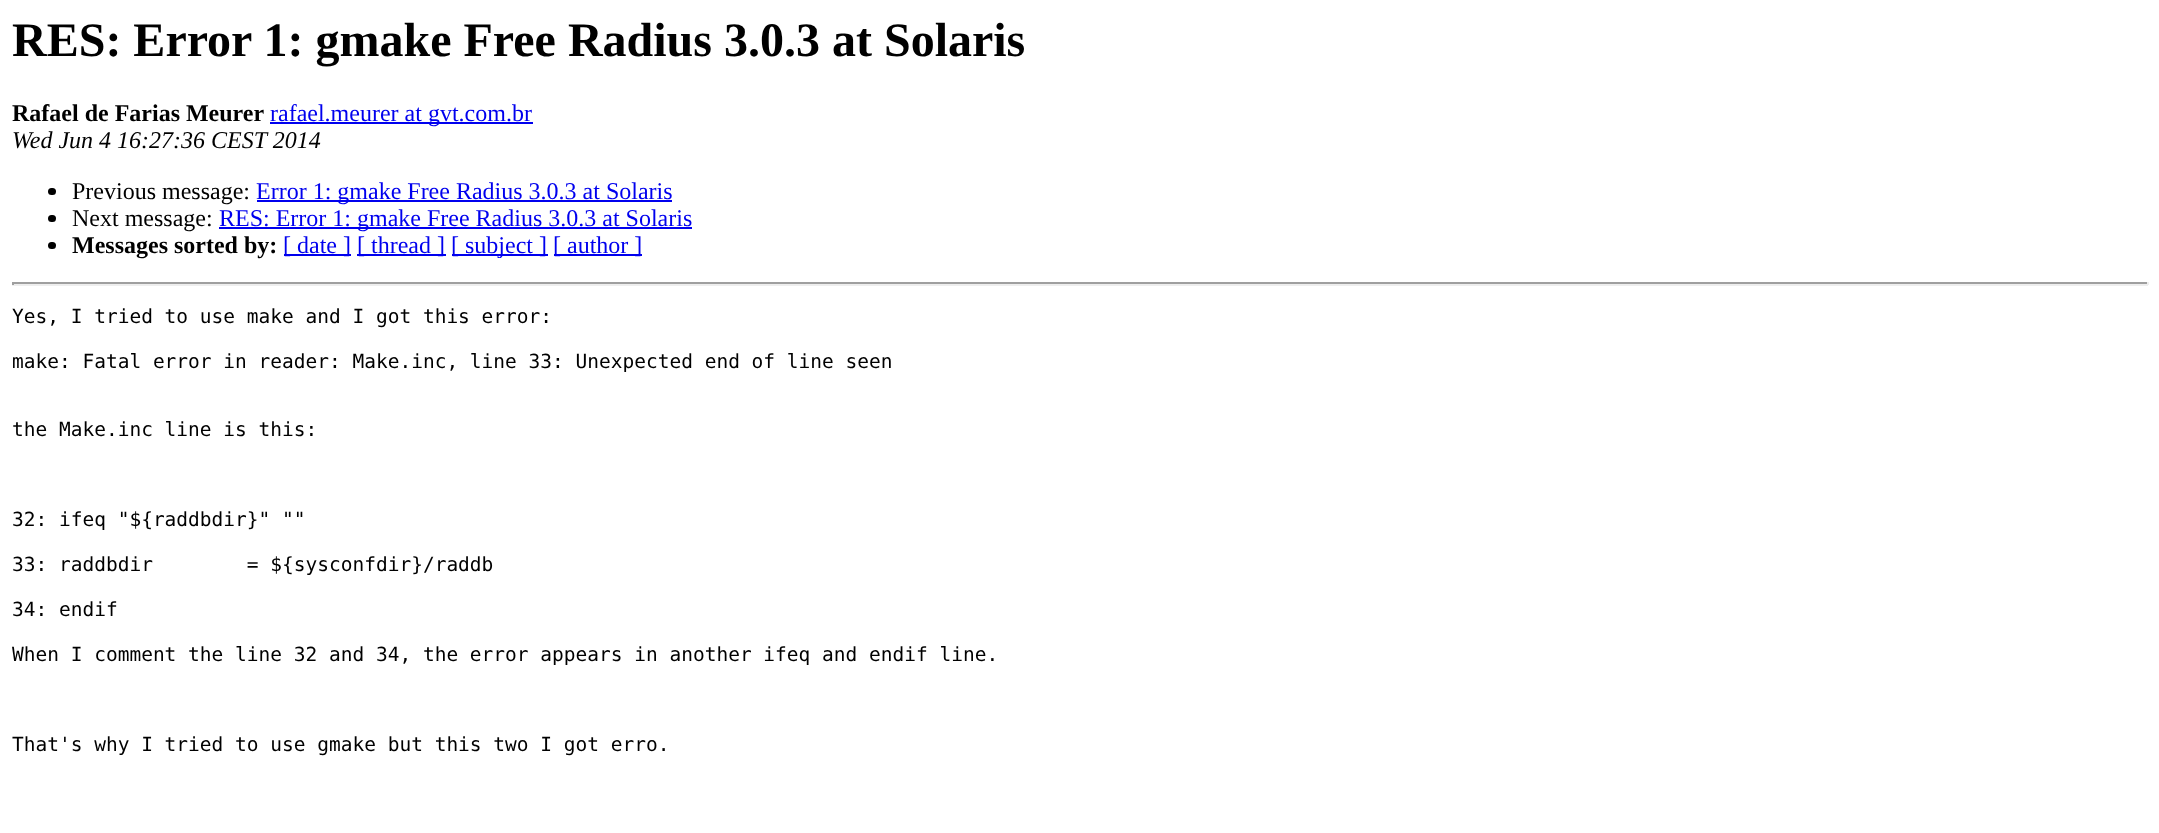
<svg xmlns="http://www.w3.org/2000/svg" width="2159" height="833">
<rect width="100%" height="100%" fill="#fff"/>
<text x="12" y="56" style="font-family:Liberation Serif;font-size:48px;font-weight:bold;fill:#000">RES: Error 1: gmake Free Radius 3.0.3 at Solaris</text>
<text x="12" y="121" style="font-family:Liberation Serif;font-size:24px;font-weight:bold;fill:#000">Rafael de Farias Meurer</text>
<rect x="270" y="122" width="263" height="2" fill="#00e"/>
<text x="270" y="121" style="font-family:Liberation Serif;font-size:24px;fill:#00e">rafael.meurer at gvt.com.br</text>
<text x="12" y="148" style="font-family:Liberation Serif;font-size:24px;font-style:italic;fill:#000">Wed Jun 4 16:27:36 CEST 2014</text>
<rect x="48" y="188" width="8" height="7" rx="3.5" fill="#000"/>
<text x="72" y="199" style="font-family:Liberation Serif;font-size:24px;fill:#000">Previous message:</text>
<rect x="257" y="200" width="415" height="2" fill="#00e"/>
<text x="256" y="199" style="font-family:Liberation Serif;font-size:24px;fill:#00e">Error 1: gmake Free Radius 3.0.3 at Solaris</text>
<rect x="48" y="215" width="8" height="7" rx="3.5" fill="#000"/>
<text x="72" y="226" style="font-family:Liberation Serif;font-size:24px;fill:#000">Next message:</text>
<rect x="219" y="227" width="473" height="2" fill="#00e"/>
<text x="219" y="226" style="font-family:Liberation Serif;font-size:24px;fill:#00e">RES: Error 1: gmake Free Radius 3.0.3 at Solaris</text>
<rect x="48" y="242" width="8" height="7" rx="3.5" fill="#000"/>
<text x="72" y="253" style="font-family:Liberation Serif;font-size:24px;font-weight:bold;fill:#000">Messages sorted by:</text>
<rect x="284" y="254" width="67" height="2" fill="#00e"/>
<text x="283" y="253" style="font-family:Liberation Serif;font-size:24px;fill:#00e">[ date ]</text>
<rect x="357" y="254" width="89" height="2" fill="#00e"/>
<text x="357" y="253" style="font-family:Liberation Serif;font-size:24px;fill:#00e">[ thread ]</text>
<rect x="452" y="254" width="96" height="2" fill="#00e"/>
<text x="451" y="253" style="font-family:Liberation Serif;font-size:24px;fill:#00e">[ subject ]</text>
<rect x="554" y="254" width="88" height="2" fill="#00e"/>
<text x="553" y="253" style="font-family:Liberation Serif;font-size:24px;fill:#00e">[ author ]</text>
<rect x="12" y="282" width="2136" height="2" fill="#9f9f9f"/>
<rect x="2147" y="282" width="2" height="3" fill="#eee"/>
<rect x="12" y="284" width="2136" height="2" fill="#eee"/>
<rect x="12" y="282" width="2" height="3" fill="#9f9f9f"/>
<text x="12" y="323" style="font-family:DejaVu Sans Mono;font-size:19.5px;fill:#000">Yes, I tried to use make and I got this error:</text>
<text x="12" y="368" style="font-family:DejaVu Sans Mono;font-size:19.5px;fill:#000">make: Fatal error in reader: Make.inc, line 33: Unexpected end of line seen</text>
<text x="12" y="436" style="font-family:DejaVu Sans Mono;font-size:19.5px;fill:#000">the Make.inc line is this:</text>
<text x="12" y="526" style="font-family:DejaVu Sans Mono;font-size:19.5px;fill:#000">32: ifeq "${raddbdir}" ""</text>
<text x="12" y="571" style="font-family:DejaVu Sans Mono;font-size:19.5px;fill:#000" xml:space="preserve">33: raddbdir        = ${sysconfdir}/raddb</text>
<text x="12" y="616" style="font-family:DejaVu Sans Mono;font-size:19.5px;fill:#000">34: endif</text>
<text x="12" y="661" style="font-family:DejaVu Sans Mono;font-size:19.5px;fill:#000">When I comment the line 32 and 34, the error appears in another ifeq and endif line.</text>
<text x="12" y="751" style="font-family:DejaVu Sans Mono;font-size:19.5px;fill:#000">That's why I tried to use gmake but this two I got erro.</text>
</svg>
